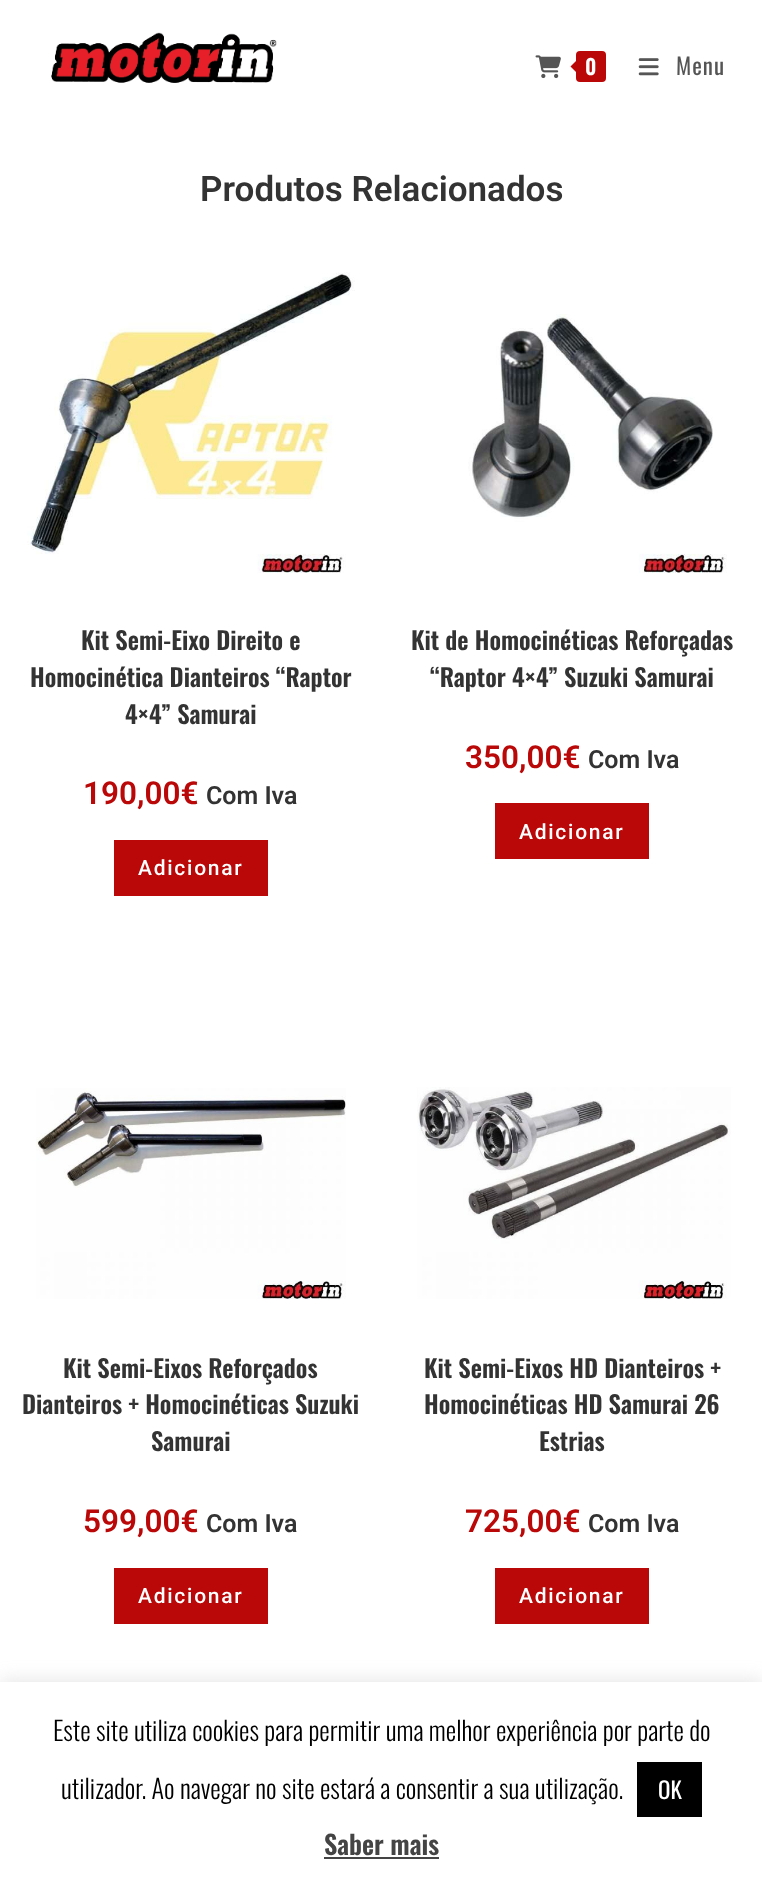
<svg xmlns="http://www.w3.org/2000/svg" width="762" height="1887">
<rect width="100%" height="100%" fill="#fff"/>
<image x="51" y="32" width="226" height="51" href="media/1.png"/>
<image x="535" y="55" width="26" height="24" href="media/2.png"/>
<rect x="576" y="51" width="30" height="31" rx="4" fill="#ba0707"/>
<path d="M579 58v17l-8.5-8.5z" fill="#ba0707"/>
<text x="585" y="75" style="font-family:Oswald;font-size:21px;font-weight:600;letter-spacing:1px;fill:#fff">0</text>
<image x="638" y="58" width="21" height="18" href="media/3.png"/>
<text x="676" y="75" style="font-family:Oswald;font-size:23px;letter-spacing:1px;fill:#555">Menu</text>
<text x="200" y="201" style="font-family:Roboto;font-size:35px;font-weight:600;fill:#333">Produtos Relacionados</text>
<image x="27" y="272" width="328" height="301" href="media/4.png"/>
<text x="81" y="650" style="font-family:Oswald;font-size:24.5px;font-weight:600;fill:#333">Kit Semi-Eixo Direito e</text>
<text x="30" y="687" style="font-family:Oswald;font-size:24.5px;font-weight:600;fill:#333">Homocinética Dianteiros “Raptor</text>
<text x="125" y="724" style="font-family:Oswald;font-size:24.5px;font-weight:600;fill:#333">4×4” Samurai</text>
<text x="83" y="804" style="font-family:Roboto;font-size:31.5px;font-weight:600;fill:#ba0707">190,00€</text>
<text x="206" y="804" style="font-family:Roboto;font-size:25px;font-weight:600;fill:#333">Com Iva</text>
<rect x="114" y="840" width="154" height="56" fill="#ba0707"/>
<text x="138" y="875" style="font-family:Roboto;font-size:21px;font-weight:500;letter-spacing:1.75px;fill:#fff">Adicionar</text>
<image x="468" y="314" width="259" height="259" href="media/5.png"/>
<text x="411" y="650" style="font-family:Oswald;font-size:24.5px;font-weight:600;fill:#333">Kit de Homocinéticas Reforçadas</text>
<text x="430" y="687" style="font-family:Oswald;font-size:24.5px;font-weight:600;fill:#333">“Raptor 4×4” Suzuki Samurai</text>
<text x="465" y="768" style="font-family:Roboto;font-size:31.5px;font-weight:600;fill:#ba0707">350,00€</text>
<text x="588" y="768" style="font-family:Roboto;font-size:25px;font-weight:600;fill:#333">Com Iva</text>
<rect x="495" y="803" width="154" height="56" fill="#ba0707"/>
<text x="519" y="839" style="font-family:Roboto;font-size:21px;font-weight:500;letter-spacing:1.75px;fill:#fff">Adicionar</text>
<image x="36" y="1088" width="310" height="211" href="media/6.png"/>
<text x="63" y="1378" style="font-family:Oswald;font-size:24.5px;font-weight:600;fill:#333">Kit Semi-Eixos Reforçados</text>
<text x="22" y="1414" style="font-family:Oswald;font-size:24.5px;font-weight:600;fill:#333">Dianteiros + Homocinéticas Suzuki</text>
<text x="151" y="1451" style="font-family:Oswald;font-size:24.5px;font-weight:600;fill:#333">Samurai</text>
<text x="83" y="1532" style="font-family:Roboto;font-size:31.5px;font-weight:600;fill:#ba0707">599,00€</text>
<text x="206" y="1532" style="font-family:Roboto;font-size:25px;font-weight:600;fill:#333">Com Iva</text>
<rect x="114" y="1568" width="154" height="56" fill="#ba0707"/>
<text x="138" y="1603" style="font-family:Roboto;font-size:21px;font-weight:500;letter-spacing:1.75px;fill:#fff">Adicionar</text>
<image x="417" y="1087" width="314" height="212" href="media/7.png"/>
<text x="424" y="1378" style="font-family:Oswald;font-size:24.5px;font-weight:600;fill:#333">Kit Semi-Eixos HD Dianteiros +</text>
<text x="424" y="1414" style="font-family:Oswald;font-size:24.5px;font-weight:600;fill:#333">Homocinéticas HD Samurai 26</text>
<text x="539" y="1451" style="font-family:Oswald;font-size:24.5px;font-weight:600;fill:#333">Estrias</text>
<text x="465" y="1532" style="font-family:Roboto;font-size:31.5px;font-weight:600;fill:#ba0707">725,00€</text>
<text x="588" y="1532" style="font-family:Roboto;font-size:25px;font-weight:600;fill:#333">Com Iva</text>
<rect x="495" y="1568" width="154" height="56" fill="#ba0707"/>
<text x="519" y="1603" style="font-family:Roboto;font-size:21px;font-weight:500;letter-spacing:1.75px;fill:#fff">Adicionar</text>
<rect y="1680" width="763" height="207" fill="#acabab4d" filter="blur(9px)"/>
<rect y="1682" width="762" height="205" fill="#fff"/>
<text x="53" y="1741" style="font-family:Oswald;font-size:26.25px;font-weight:300;fill:#000">Este site utiliza cookies para permitir uma melhor experiência por parte do</text>
<text x="61" y="1799" style="font-family:Oswald;font-size:26.25px;font-weight:300;fill:#000">utilizador. Ao navegar no site estará a consentir a sua utilização.</text>
<rect x="637" y="1762" width="65" height="55" fill="#000"/>
<text x="658" y="1799" style="font-family:Oswald;font-size:23px;fill:#fff">OK</text>
<text x="324" y="1855" style="font-family:Oswald;font-size:26.25px;font-weight:600;fill:#444">Saber mais</text>
<rect x="324" y="1857" width="115" height="2" fill="#444"/>
</svg>
